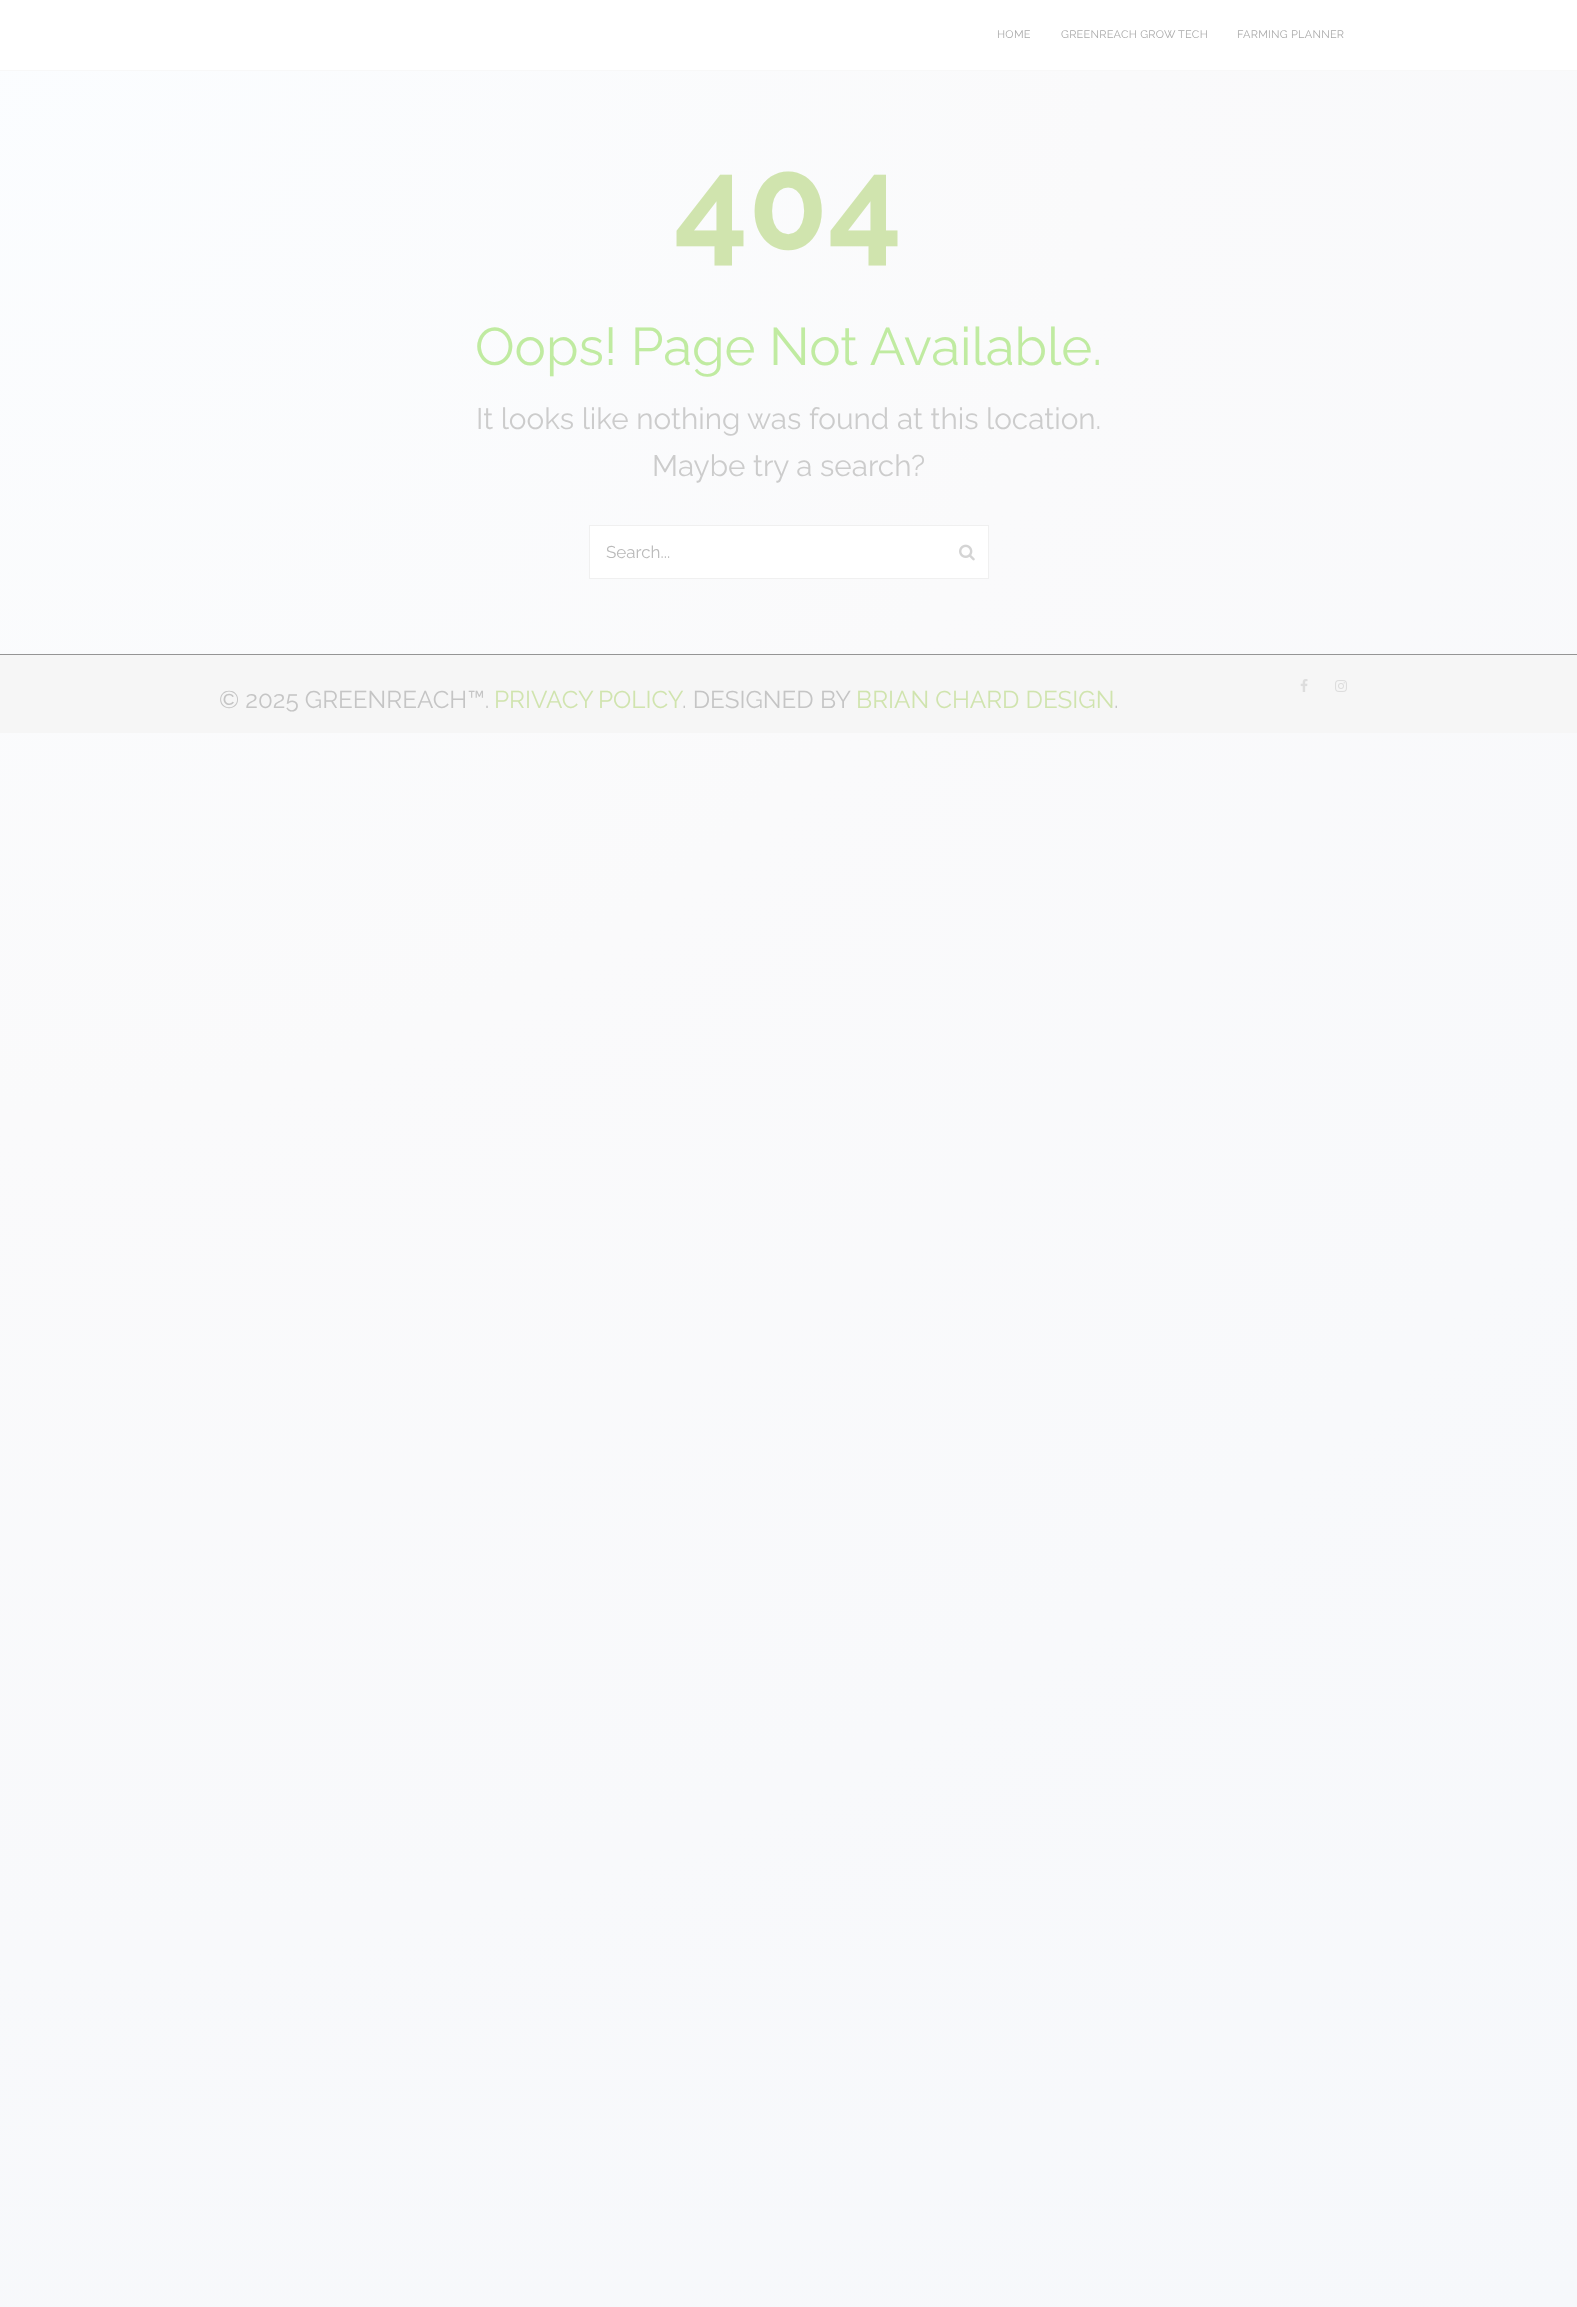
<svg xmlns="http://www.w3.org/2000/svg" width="1577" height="2307">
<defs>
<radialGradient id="g1" gradientUnits="userSpaceOnUse" cx="0" cy="0" r="2794"><stop offset="0" stop-color="#fbfdff"/><stop offset="0.4" stop-color="#fafafb"/><stop offset="1" stop-color="#f6f8fb"/></radialGradient>
</defs>
<rect width="100%" height="100%" fill="#fff"/>
<rect y="71" width="1577" height="2236" fill="url(#g1)"/>
<rect y="70" width="1577" height="1" fill="#f8f8f8"/>
<text x="997" y="38" style="font-family:Raleway;font-size:11px;letter-spacing:0.25px;fill:#aaa">HOME</text>
<text x="1061" y="38" style="font-family:Raleway;font-size:11px;letter-spacing:0.25px;fill:#aaa">GREENREACH GROW TECH</text>
<text x="1237" y="38" style="font-family:Raleway;font-size:11px;letter-spacing:0.25px;fill:#aaa">FARMING PLANNER</text>
<text x="674" y="249" style="font-family:Raleway;font-size:130px;font-weight:bold;fill:#d0e4ae">404</text>
<text x="475" y="365" style="font-family:Raleway;font-size:52.75px;fill:#c0eba1">Oops! Page Not Available.</text>
<text x="476" y="429" style="font-family:Raleway;font-size:29.7px;fill:#ccc">It looks like nothing was found at this location.</text>
<text x="652" y="476" style="font-family:Raleway;font-size:29.7px;fill:#ccc">Maybe try a search?</text>
<rect x="589.5" y="525.5" width="399" height="53" fill="#fff" stroke="#f0f0f0"/>
<text x="606" y="558" style="font-family:Raleway;font-size:17px;fill:#bababa">Search...</text>
<image x="959" y="544" width="16" height="17" href="media/1.png"/>
<rect y="655" width="1577" height="78" fill="#f6f6f6"/>
<rect y="654" width="1577" height="1" fill="#959595"/>
<image x="1300" y="679" width="8" height="13" href="media/2.png"/>
<image x="1335" y="680" width="12" height="12" href="media/3.png"/>
<text x="219" y="708" style="font-family:Raleway;font-size:24.25px;fill:#c5c5c5">© 2025 GREENREACH™.</text>
<text x="494" y="708" word-spacing="-1" style="font-family:Raleway;font-size:24.25px;fill:#d0e4ae">PRIVACY POLICY</text>
<text x="682" y="708" style="font-family:Raleway;font-size:24.25px;fill:#c5c5c5">. DESIGNED BY</text>
<text x="856" y="708" style="font-family:Raleway;font-size:24.25px;fill:#d0e4ae">BRIAN CHARD DESIGN</text>
<text x="1114" y="708" style="font-family:Raleway;font-size:24.25px;fill:#c5c5c5">.</text>
</svg>
